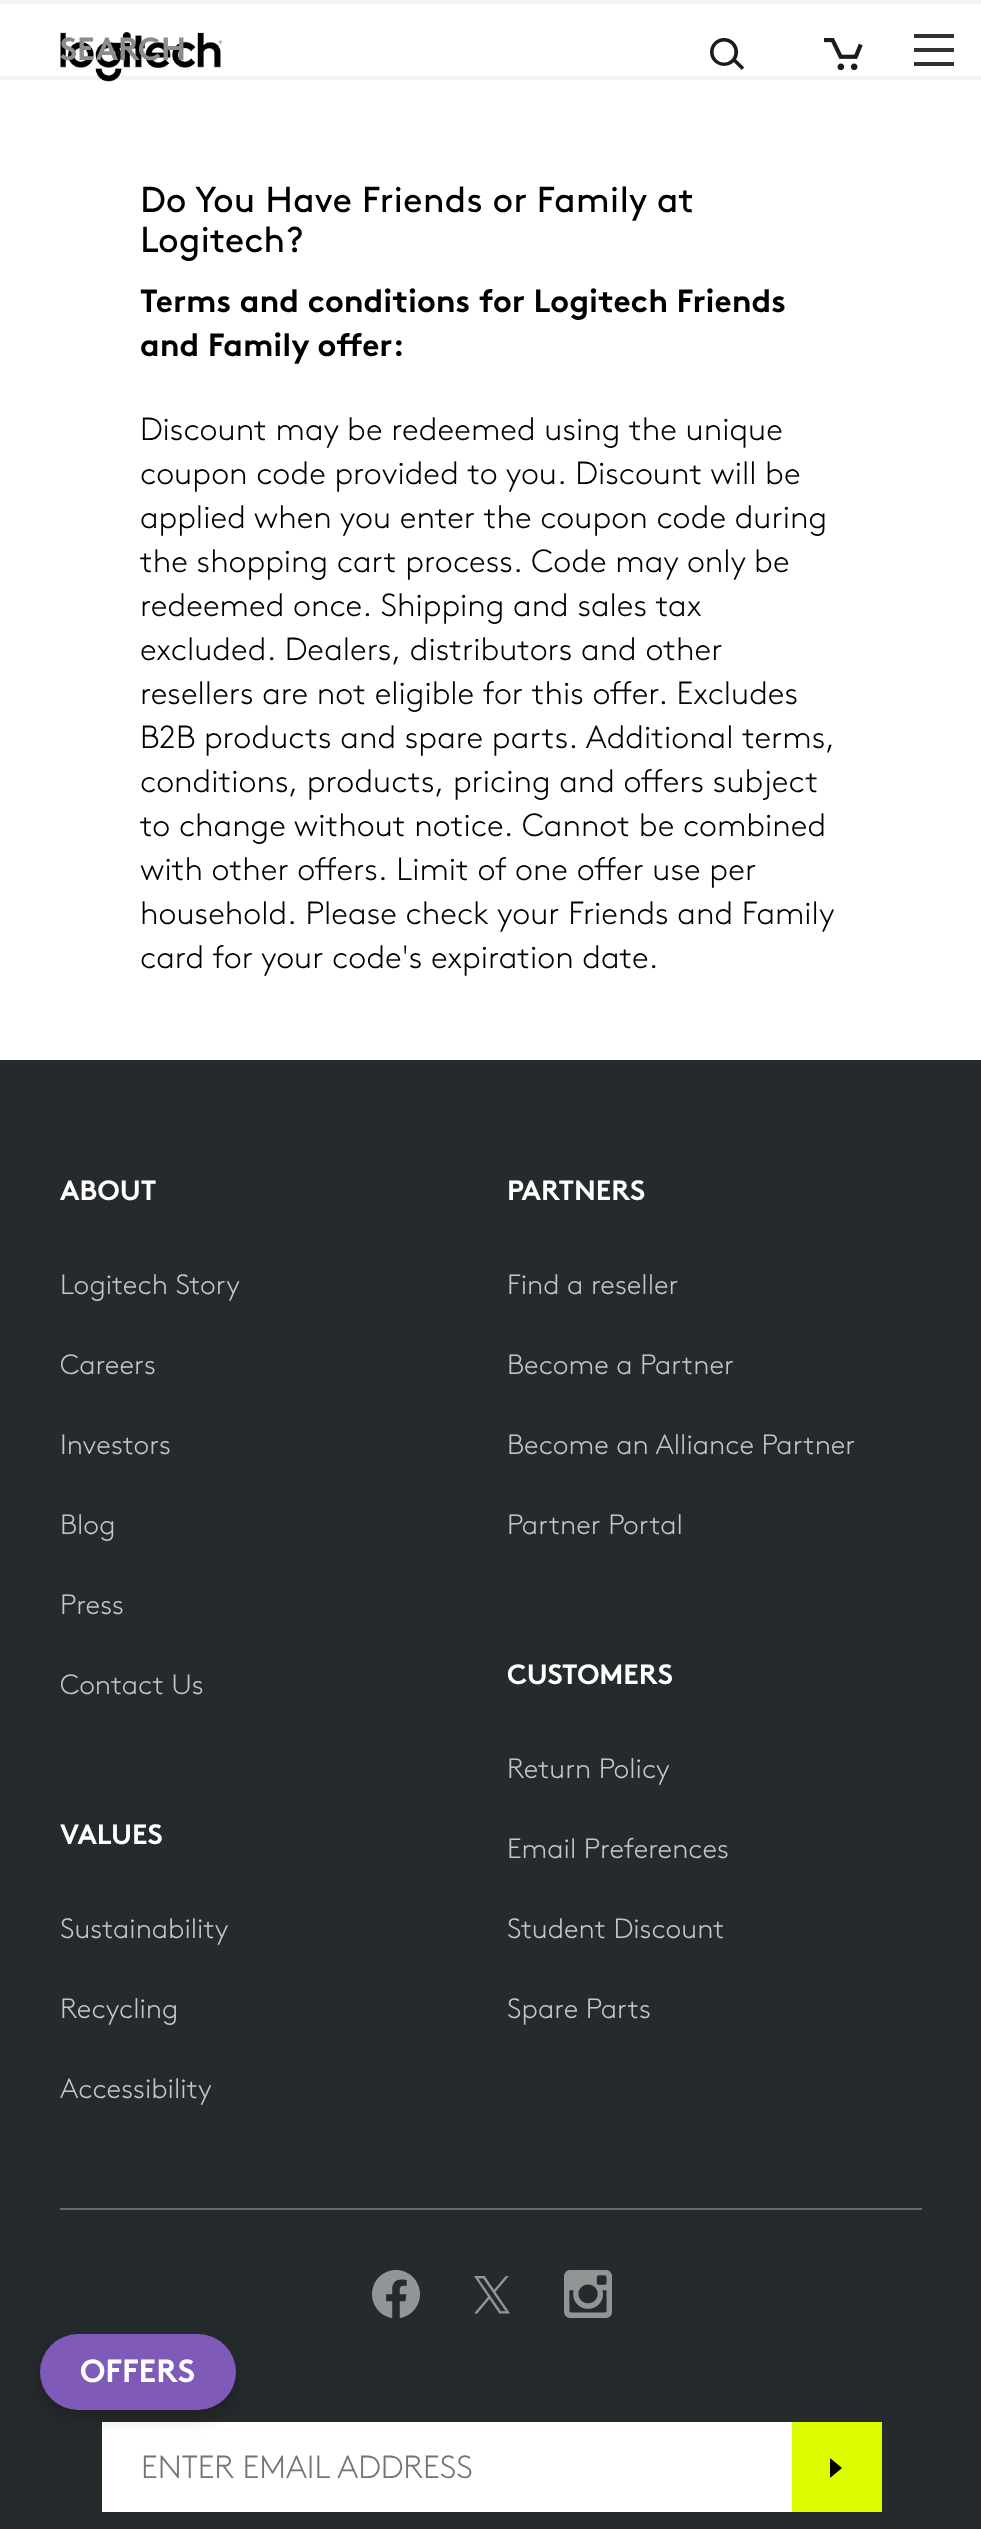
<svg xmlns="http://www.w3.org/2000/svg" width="981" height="2529">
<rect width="100%" height="100%" fill="#fff"/>
<rect width="981" height="4" fill="#f2f2f2"/>
<rect y="76" width="981" height="4" fill="#f2f2f2"/>
<image x="60" y="32" width="162" height="50" href="media/1.png"/>
<image x="710" y="38" width="35" height="32" href="media/2.png"/>
<image x="824" y="38" width="39" height="33" href="media/3.png"/>
<rect x="914" y="34" width="40" height="4" fill="#2f3132"/>
<rect x="914" y="48" width="40" height="4" fill="#2f3132"/>
<rect x="914" y="62" width="40" height="4" fill="#2f3132"/>
<text x="60" y="60" style="font-family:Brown;font-size:32px;font-weight:bold;fill:#8c8c8c">SEARCH</text>
<text x="140" y="212" style="font-family:Brown;font-size:36px;fill:#000">Do You Have Friends or Family at</text>
<text x="140" y="252" style="font-family:Brown;font-size:36px;fill:#000">Logitech?</text>
<text x="140" y="312" style="font-family:Brown;font-size:32px;font-weight:bold;fill:#000">Terms and conditions for Logitech Friends</text>
<text x="140" y="356" style="font-family:Brown;font-size:32px;font-weight:bold;fill:#000">and Family offer:</text>
<text x="140" y="440" style="font-family:Brown;font-size:32px;font-weight:300;fill:#000">Discount may be redeemed using the unique</text>
<text x="140" y="484" style="font-family:Brown;font-size:32px;font-weight:300;fill:#000">coupon code provided to you. Discount will be</text>
<text x="140" y="528" style="font-family:Brown;font-size:32px;font-weight:300;fill:#000">applied when you enter the coupon code during</text>
<text x="140" y="572" style="font-family:Brown;font-size:32px;font-weight:300;fill:#000">the shopping cart process. Code may only be</text>
<text x="140" y="616" style="font-family:Brown;font-size:32px;font-weight:300;fill:#000">redeemed once. Shipping and sales tax</text>
<text x="140" y="660" style="font-family:Brown;font-size:32px;font-weight:300;fill:#000">excluded. Dealers, distributors and other</text>
<text x="140" y="704" style="font-family:Brown;font-size:32px;font-weight:300;fill:#000">resellers are not eligible for this offer. Excludes</text>
<text x="140" y="748" style="font-family:Brown;font-size:32px;font-weight:300;fill:#000">B2B products and spare parts. Additional terms,</text>
<text x="140" y="792" style="font-family:Brown;font-size:32px;font-weight:300;fill:#000">conditions, products, pricing and offers subject</text>
<text x="140" y="836" style="font-family:Brown;font-size:32px;font-weight:300;fill:#000">to change without notice. Cannot be combined</text>
<text x="140" y="880" style="font-family:Brown;font-size:32px;font-weight:300;fill:#000">with other offers. Limit of one offer use per</text>
<text x="140" y="924" style="font-family:Brown;font-size:32px;font-weight:300;fill:#000">household. Please check your Friends and Family</text>
<text x="140" y="968" style="font-family:Brown;font-size:32px;font-weight:300;fill:#000">card for your code's expiration date.</text>
<rect y="1060" width="981" height="1469" fill="#252a2c"/>
<text x="60" y="1200" style="font-family:Brown;font-size:28px;font-weight:bold;fill:#fff">ABOUT</text>
<text x="60" y="1294" style="font-family:Brown;font-size:28px;font-weight:300;fill:#c3c6c8">Logitech Story</text>
<text x="60" y="1374" style="font-family:Brown;font-size:28px;font-weight:300;fill:#c3c6c8">Careers</text>
<text x="60" y="1454" style="font-family:Brown;font-size:28px;font-weight:300;fill:#c3c6c8">Investors</text>
<text x="60" y="1534" style="font-family:Brown;font-size:28px;font-weight:300;fill:#c3c6c8">Blog</text>
<text x="60" y="1614" style="font-family:Brown;font-size:28px;font-weight:300;fill:#c3c6c8">Press</text>
<text x="60" y="1694" style="font-family:Brown;font-size:28px;font-weight:300;fill:#c3c6c8">Contact Us</text>
<text x="507" y="1200" style="font-family:Brown;font-size:28px;font-weight:bold;fill:#fff">PARTNERS</text>
<text x="507" y="1294" style="font-family:Brown;font-size:28px;font-weight:300;fill:#c3c6c8">Find a reseller</text>
<text x="507" y="1374" style="font-family:Brown;font-size:28px;font-weight:300;fill:#c3c6c8">Become a Partner</text>
<text x="507" y="1454" style="font-family:Brown;font-size:28px;font-weight:300;fill:#c3c6c8">Become an Alliance Partner</text>
<text x="507" y="1534" style="font-family:Brown;font-size:28px;font-weight:300;fill:#c3c6c8">Partner Portal</text>
<text x="60" y="1844" style="font-family:Brown;font-size:28px;font-weight:bold;fill:#fff">VALUES</text>
<text x="60" y="1938" style="font-family:Brown;font-size:28px;font-weight:300;fill:#c3c6c8">Sustainability</text>
<text x="60" y="2018" style="font-family:Brown;font-size:28px;font-weight:300;fill:#c3c6c8">Recycling</text>
<text x="60" y="2098" style="font-family:Brown;font-size:28px;font-weight:300;fill:#c3c6c8">Accessibility</text>
<text x="507" y="1684" style="font-family:Brown;font-size:28px;font-weight:bold;fill:#fff">CUSTOMERS</text>
<text x="507" y="1778" style="font-family:Brown;font-size:28px;font-weight:300;fill:#c3c6c8">Return Policy</text>
<text x="507" y="1858" style="font-family:Brown;font-size:28px;font-weight:300;fill:#c3c6c8">Email Preferences</text>
<text x="507" y="1938" style="font-family:Brown;font-size:28px;font-weight:300;fill:#c3c6c8">Student Discount</text>
<text x="507" y="2018" style="font-family:Brown;font-size:28px;font-weight:300;fill:#c3c6c8">Spare Parts</text>
<rect x="60" y="2208" width="862" height="2" fill="#666a6b"/>
<image x="372" y="2270" width="48" height="48" href="media/4.png"/>
<image x="474" y="2276" width="36" height="38" href="media/5.png"/>
<image x="564" y="2270" width="48" height="48" href="media/6.png"/>
<rect x="102" y="2422" width="690" height="90" fill="#fff"/>
<text x="141" y="2478" style="font-family:Brown;font-size:32px;font-weight:300;fill:#757575">ENTER EMAIL ADDRESS</text>
<rect x="792" y="2422" width="90" height="90" fill="#dcfd00"/>
<path d="M830 2478v-20l12 10z" fill="#000"/>
<rect x="40" y="2342" width="196" height="76" rx="38" fill="#00000033" filter="blur(8px)"/>
<rect x="40" y="2334" width="196" height="76" rx="38" fill="#7f5ab8"/>
<text x="80" y="2382" style="font-family:Brown;font-size:32px;font-weight:bold;fill:#fff">OFFERS</text>
</svg>
